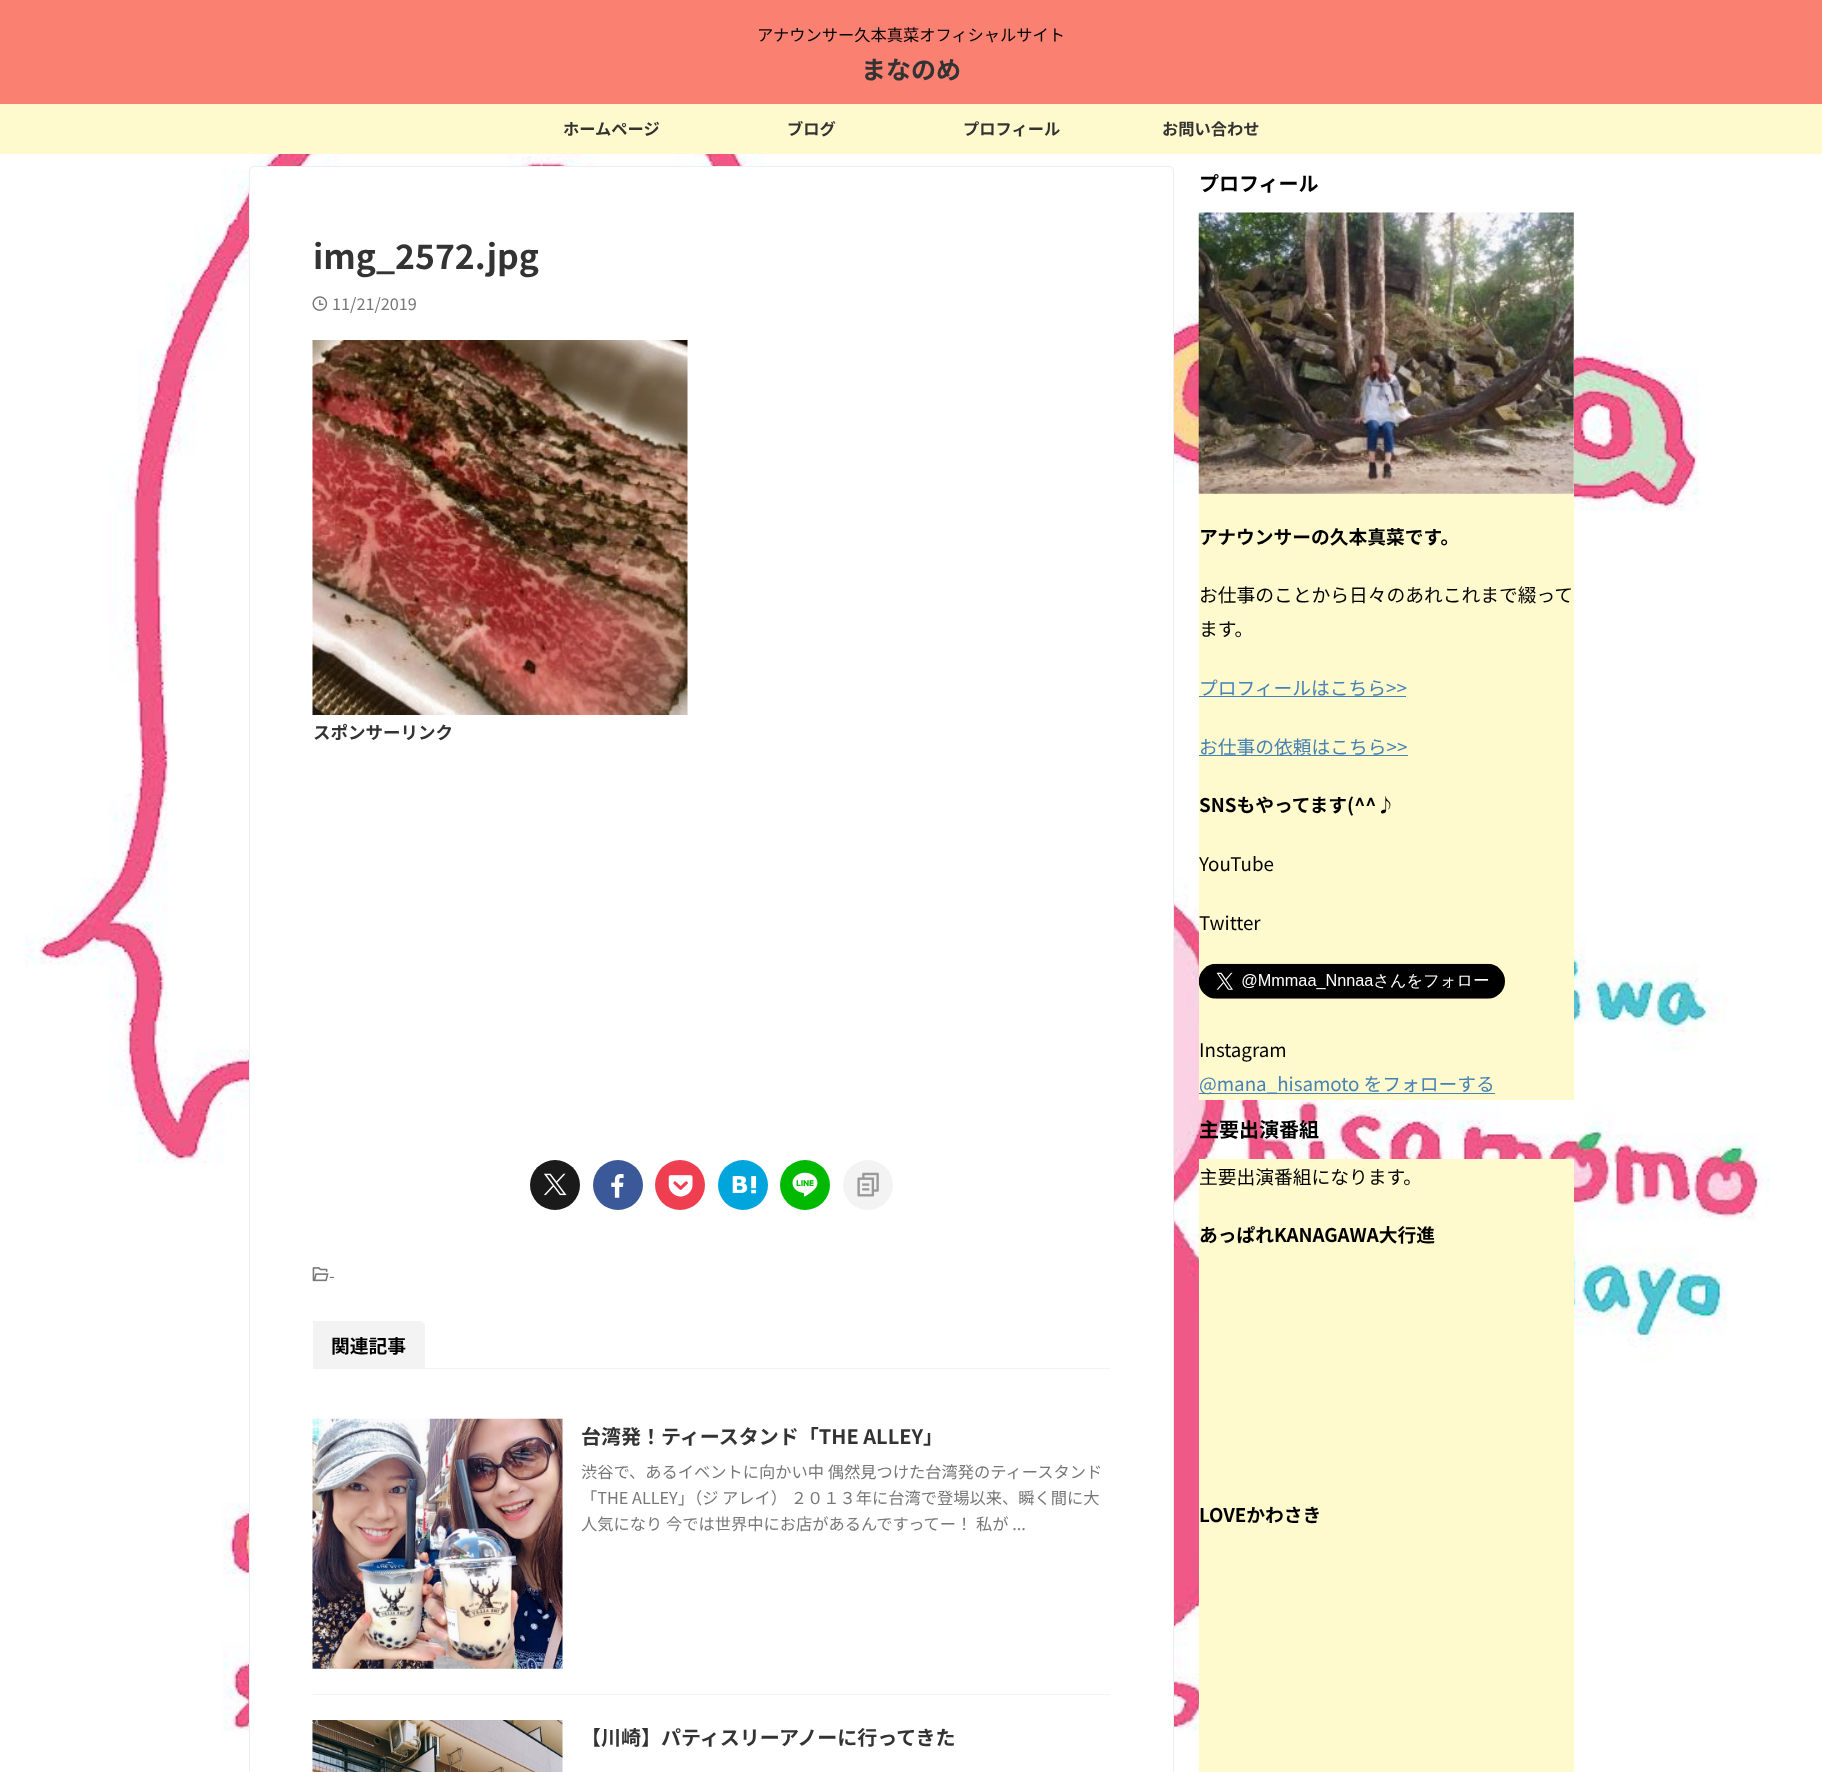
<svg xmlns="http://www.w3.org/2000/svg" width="1822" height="1772">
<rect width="100%" height="100%" fill="#fff"/>
<image x="25" y="154" width="1745" height="1605" href="media/1.png"/>
<rect width="1822" height="104" fill="#fa8072"/>
<text x="757" y="41" style="font-family:Noto Sans JP;font-size:16.25px;fill:#000">アナウンサー久本真菜オフィシャルサイト</text>
<text x="861" y="79" style="font-family:Noto Sans JP;font-size:25px;font-weight:bold;fill:#333">まなのめ</text>
<rect y="104" width="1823" height="50" rx="1" fill="#fffacd"/>
<text x="563" y="135" style="font-family:Noto Sans JP;font-size:16.25px;font-weight:bold;fill:#333">ホームページ</text>
<text x="787" y="135" style="font-family:Noto Sans JP;font-size:16.25px;font-weight:bold;fill:#333">ブログ</text>
<text x="963" y="135" style="font-family:Noto Sans JP;font-size:16.25px;font-weight:bold;fill:#333">プロフィール</text>
<text x="1162" y="135" style="font-family:Noto Sans JP;font-size:16.25px;font-weight:bold;fill:#333">お問い合わせ</text>
<rect x="249.5" y="166.5" width="924" height="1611" rx="4.5" fill="#fff" stroke="#eee"/>
<text x="313" y="269" style="font-family:Noto Sans JP;font-size:33.75px;font-weight:bold;fill:#333">img_2572.jpg</text>
<image x="312" y="296" width="16" height="15" href="media/2.png"/>
<text x="332" y="310" style="font-family:Noto Sans JP;font-size:16.25px;fill:#777">11/21/2019</text>
<image x="312" y="340" width="376" height="375" href="media/3.png"/>
<text x="313" y="739" style="font-family:Noto Sans JP;font-size:17.5px;font-weight:bold;fill:#333">スポンサーリンク</text>
<circle cx="555" cy="1185" r="25" fill="#1a1a1a"/>
<image x="544" y="1173" width="23" height="23" href="media/4.png"/>
<circle cx="618" cy="1185" r="25" fill="#3b5998"/>
<image x="611" y="1174" width="13" height="24" href="media/5.png"/>
<circle cx="680" cy="1185" r="25" fill="#f03e51"/>
<image x="668" y="1175" width="25" height="22" href="media/6.png"/>
<circle cx="743" cy="1185" r="25" fill="#00a5de"/>
<image x="732" y="1175" width="25" height="19" href="media/7.png"/>
<circle cx="805" cy="1185" r="25" fill="#00b900"/>
<image x="792" y="1172" width="26" height="25" href="media/8.png"/>
<circle cx="868" cy="1185" r="25" fill="#f3f3f3"/>
<image x="857" y="1172" width="22" height="25" href="media/9.png"/>
<image x="312" y="1267" width="17" height="15" href="media/10.png"/>
<text x="329" y="1282" style="font-family:Noto Sans JP;font-size:16.25px;fill:#777">-</text>
<rect x="313" y="1368" width="797" height="1" fill="#f3f3f3"/>
<path d="M313 1321h106c3.5 0 6 2.5 6 6v41h-112z" fill="#f3f3f3"/>
<text x="331" y="1353" style="font-family:Noto Sans JP;font-size:18.75px;font-weight:bold;fill:#000">関連記事</text>
<rect x="313" y="1694" width="797" height="1" fill="#f3f3f3"/>
<image x="312" y="1418" width="251" height="251" href="media/11.png"/>
<text x="581" y="1444" style="font-family:Noto Sans JP;font-size:20px;font-weight:bold;fill:#333">台湾発！ティースタンド「THE ALLEY」</text>
<text x="581" y="1478" style="font-family:Noto Sans JP;font-size:16.25px;fill:#777">渋谷で、あるイベントに向かい中 偶然見つけた台湾発のティースタンド</text>
<text x="581" y="1504" style="font-family:Noto Sans JP;font-size:16.25px;fill:#777">「THE ALLEY」（ジ アレイ） ２０１３年に台湾で登場以来、瞬く間に大</text>
<text x="581" y="1530" style="font-family:Noto Sans JP;font-size:16.25px;fill:#777">人気になり 今では世界中にお店があるんですってー！ 私が ...</text>
<image x="312" y="1720" width="251" height="52" href="media/12.png"/>
<text x="581" y="1745" style="font-family:Noto Sans JP;font-size:20px;font-weight:bold;fill:#333">【川崎】パティスリーアノーに行ってきた</text>
<text x="1199" y="191" style="font-family:Noto Sans JP;font-size:20px;font-weight:bold;fill:#000">プロフィール</text>
<rect x="1199" y="213" width="375" height="887" fill="#fffacd"/>
<image x="1198" y="212" width="376" height="282" href="media/13.png"/>
<text x="1199" y="544" style="font-family:Noto Sans JP;font-size:18.75px;font-weight:bold;fill:#000">アナウンサーの久本真菜です。</text>
<text x="1199" y="602" style="font-family:Noto Sans JP;font-size:18.75px;fill:#000">お仕事のことから日々のあれこれまで綴って</text>
<text x="1199" y="636" style="font-family:Noto Sans JP;font-size:18.75px;fill:#000">ます。</text>
<rect x="1199" y="696" width="207" height="1" fill="#4682b4"/>
<text x="1199" y="695" style="font-family:Noto Sans JP;font-size:18.75px;fill:#4682b4">プロフィールはこちら&gt;&gt;</text>
<rect x="1199" y="755" width="209" height="1" fill="#4682b4"/>
<text x="1199" y="754" style="font-family:Noto Sans JP;font-size:18.75px;fill:#4682b4">お仕事の依頼はこちら&gt;&gt;</text>
<text x="1199" y="812" style="font-family:Noto Sans JP;font-size:18.75px;font-weight:bold;fill:#000">SNSもやってます(^^♪</text>
<text x="1199" y="871" style="font-family:Noto Sans JP;font-size:18.75px;fill:#000">YouTube</text>
<text x="1199" y="930" style="font-family:Noto Sans JP;font-size:18.75px;fill:#000">Twitter</text>
<image x="1198" y="963" width="307" height="36" href="media/14.png"/>
<text x="1199" y="1057" style="font-family:Noto Sans JP;font-size:18.75px;fill:#000">Instagram</text>
<rect x="1199" y="1093" width="296" height="1" fill="#4682b4"/>
<text x="1199" y="1091" style="font-family:Noto Sans JP;font-size:18.75px;fill:#4682b4">@mana_hisamoto をフォローする</text>
<text x="1199" y="1137" style="font-family:Noto Sans JP;font-size:20px;font-weight:bold;fill:#000">主要出演番組</text>
<rect x="1199" y="1159" width="375" height="613" fill="#fffacd"/>
<text x="1199" y="1184" style="font-family:Noto Sans JP;font-size:18.75px;fill:#000">主要出演番組になります。</text>
<text x="1199" y="1242" style="font-family:Noto Sans JP;font-size:18.75px;font-weight:bold;fill:#000">あっぱれKANAGAWA大行進</text>
<text x="1199" y="1522" style="font-family:Noto Sans JP;font-size:18.75px;font-weight:bold;fill:#000">LOVEかわさき</text>
</svg>
